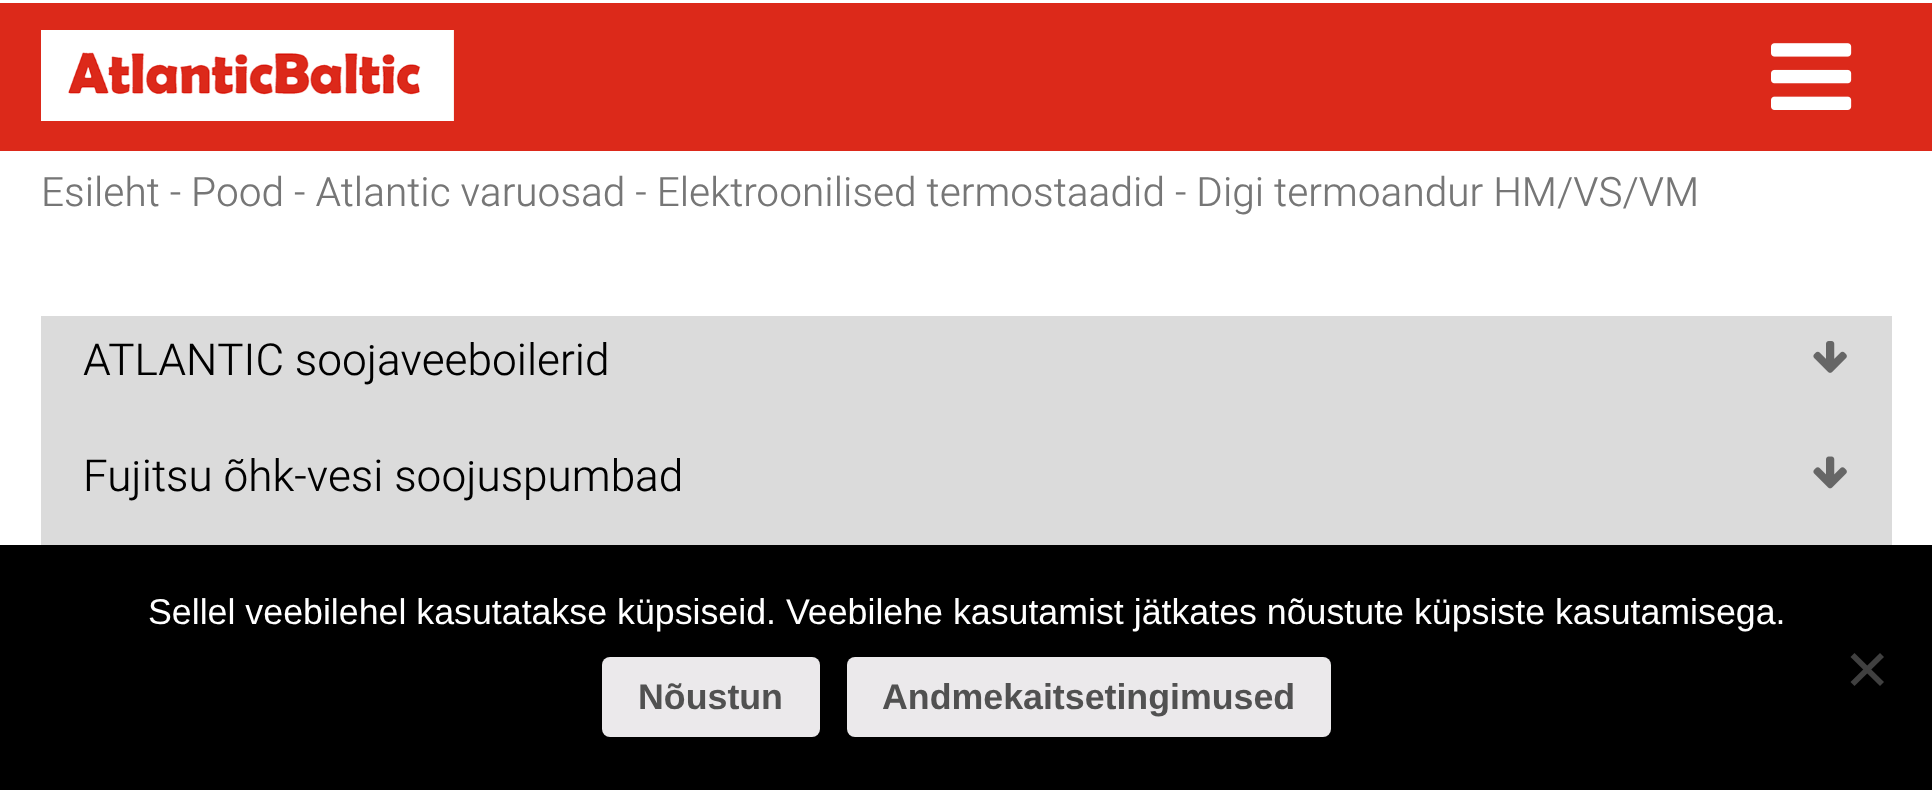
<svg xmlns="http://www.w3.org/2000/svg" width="1932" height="790">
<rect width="100%" height="100%" fill="#fff"/>
<rect y="3" width="1932" height="148" fill="#dc291a"/>
<image x="41" y="30" width="413" height="91" href="media/1.png"/>
<image x="1771" y="43" width="81" height="67" href="media/2.png"/>
<text x="41" y="206" style="font-family:Heebo;font-size:40.5px;font-weight:300;fill:#767676">Esileht - Pood - Atlantic varuosad - Elektroonilised termostaadid - Digi termoandur HM/VS/VM</text>
<rect x="41" y="316" width="1851" height="229" fill="#dbdbdb"/>
<text x="83" y="375" style="font-family:Heebo;font-size:44px;font-weight:300;fill:#000">ATLANTIC soojaveeboilerid</text>
<image x="1813" y="341" width="34" height="32" href="media/3.png"/>
<text x="83" y="491" style="font-family:Heebo;font-size:44px;font-weight:300;fill:#000">Fujitsu õhk-vesi soojuspumbad</text>
<image x="1813" y="456" width="34" height="33" href="media/4.png"/>
<rect y="545" width="1932" height="245" fill="#000"/>
<text x="148" y="624" style="font-family:Liberation Sans;font-size:35.75px;fill:#fff">Sellel veebilehel kasutatakse küpsiseid. Veebilehe kasutamist jätkates nõustute küpsiste kasutamisega.</text>
<path d="M1880 653l4 4l-29.5 29l-4-4z" fill="#404040"/>
<path d="M1850.5 657l4-4l29.5 29l-4 4z" fill="#404040"/>
<rect x="602" y="657" width="218" height="80" rx="8" fill="#ebe9eb"/>
<text x="638" y="709" style="font-family:Liberation Sans;font-size:35.75px;font-weight:bold;fill:#515151">Nõustun</text>
<rect x="847" y="657" width="484" height="80" rx="8" fill="#ebe9eb"/>
<text x="882" y="709" style="font-family:Liberation Sans;font-size:35.75px;font-weight:bold;fill:#515151">Andmekaitsetingimused</text>
</svg>
